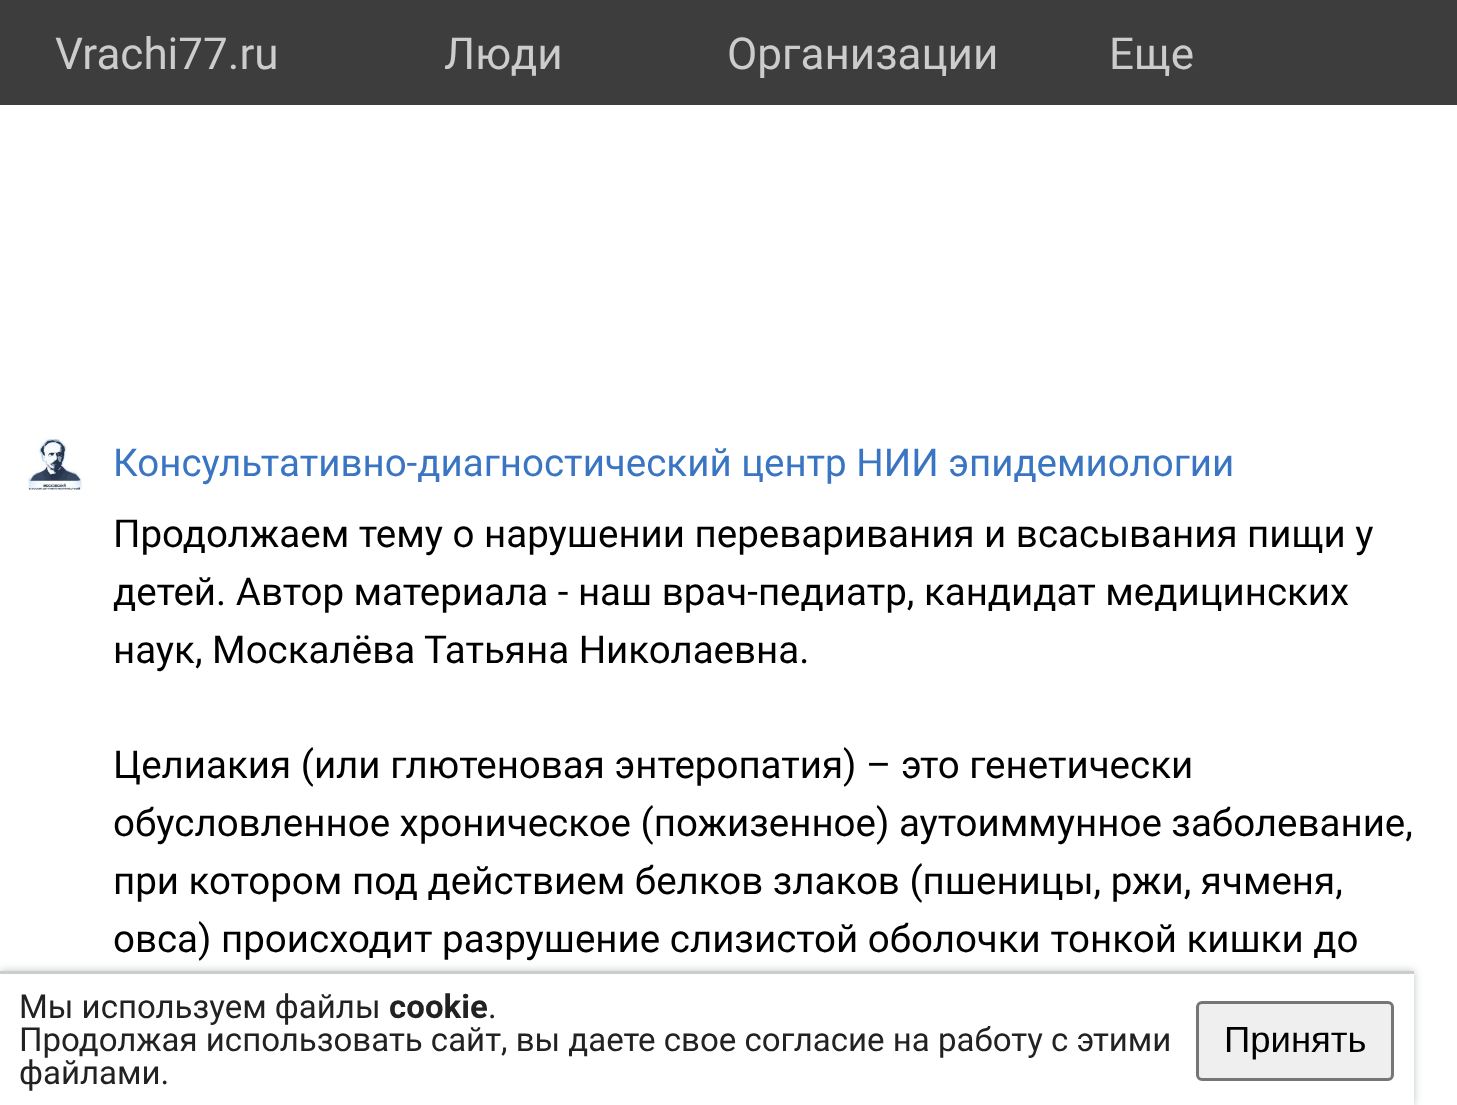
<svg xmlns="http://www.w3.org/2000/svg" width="1457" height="1105">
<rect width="100%" height="100%" fill="#fff"/>
<rect width="1457" height="105" fill="#3d3d3d"/>
<text x="55" y="69" style="font-family:Roboto;font-size:44px;fill:#ccc">Vrachi77.ru</text>
<text x="444" y="69" style="font-family:Roboto;font-size:44px;fill:#ccc">Люди</text>
<text x="727" y="69" style="font-family:Roboto;font-size:44px;fill:#ccc">Организации</text>
<text x="1109" y="69" style="font-family:Roboto;font-size:44px;fill:#ccc">Eще</text>
<image x="28" y="436" width="55" height="54" href="media/1.png"/>
<text x="113" y="476" style="font-family:Roboto;font-size:38.5px;fill:#3a75c3">Консультативно-диагностический центр НИИ эпидемиологии</text>
<text x="113" y="547" style="font-family:Roboto;font-size:38.5px;fill:#000">Продолжаем тему о нарушении переваривания и всасывания пищи у</text>
<text x="113" y="605" style="font-family:Roboto;font-size:38.5px;fill:#000">детей. Автор материала - наш врач-педиатр, кандидат медицинских</text>
<text x="113" y="663" style="font-family:Roboto;font-size:38.5px;fill:#000">наук, Москалёва Татьяна Николаевна.</text>
<text x="113" y="778" style="font-family:Roboto;font-size:38.5px;fill:#000">Целиакия (или глютеновая энтеропатия) – это генетически</text>
<text x="113" y="836" style="font-family:Roboto;font-size:38.5px;fill:#000">обусловленное хроническое (пожизенное) аутоиммунное заболевание,</text>
<text x="113" y="894" style="font-family:Roboto;font-size:38.5px;fill:#000">при котором под действием белков злаков (пшеницы, ржи, ячменя,</text>
<text x="113" y="952" style="font-family:Roboto;font-size:38.5px;fill:#000">овса) происходит разрушение слизистой оболочки тонкой кишки до</text>
<rect y="971" width="1414" height="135" fill="#223c504d" filter="blur(4px)"/>
<rect y="974" width="1414" height="131" fill="#fff"/>
<rect y="971" width="1414" height="3" fill="#ccc"/>
<text x="19" y="1018" style="font-family:Roboto;font-size:33px;fill:#222">Мы используем файлы</text>
<text x="389" y="1018" style="font-family:Roboto;font-size:33px;font-weight:bold;fill:#222">cookie</text>
<text x="488" y="1018" style="font-family:Roboto;font-size:33px;fill:#222">.</text>
<text x="19" y="1051" style="font-family:Roboto;font-size:33px;fill:#222">Продолжая использовать сайт, вы даете свое согласие на работу с этими</text>
<text x="19" y="1084" style="font-family:Roboto;font-size:33px;fill:#222">файлами.</text>
<rect x="1197.5" y="1002.5" width="195" height="77" rx="4.5" fill="#efefef" stroke="#767676" stroke-width="3"/>
<text x="1224" y="1052" style="font-family:Liberation Sans;font-size:36.5px;fill:#000">Принять</text>
</svg>
